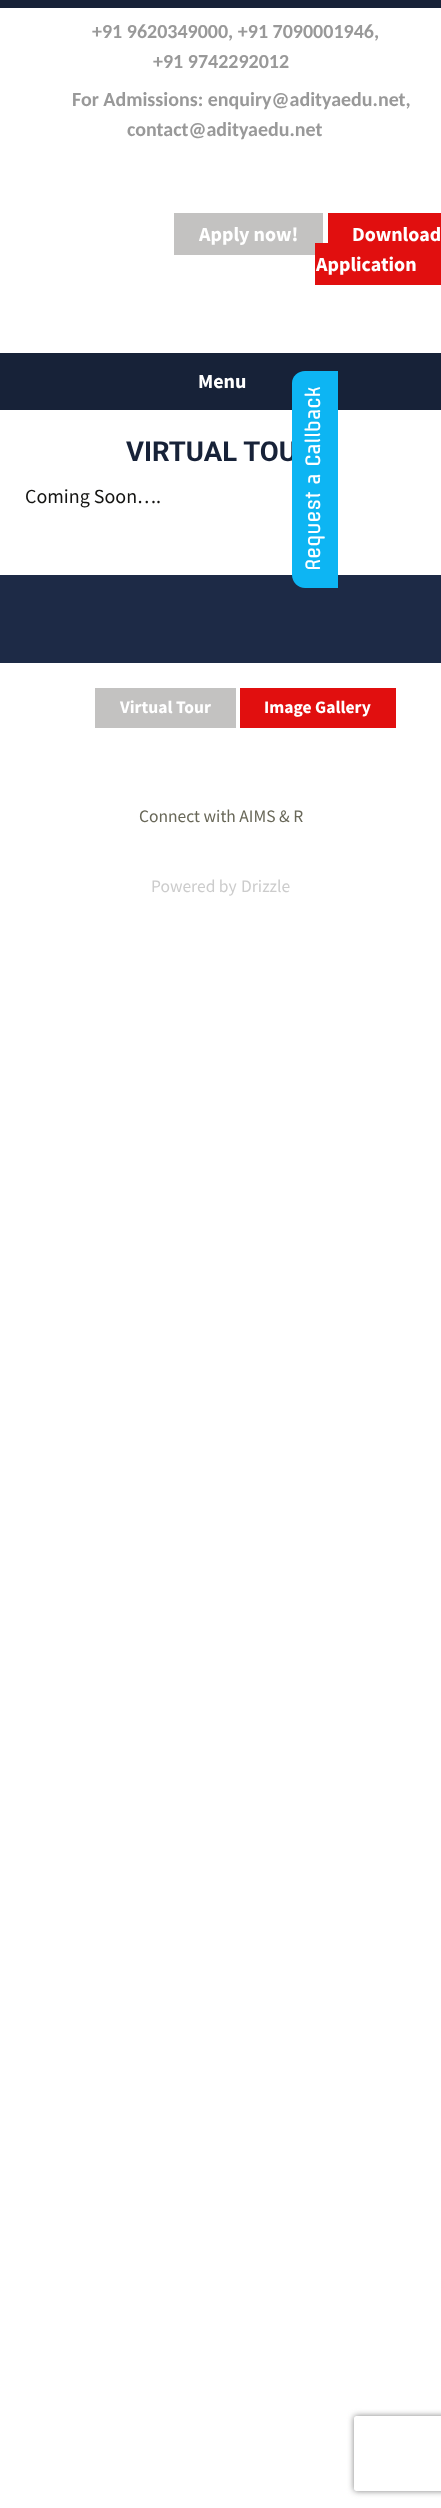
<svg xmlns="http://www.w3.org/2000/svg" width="441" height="2508">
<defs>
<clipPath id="clip1"><path d="M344 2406h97v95h-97zm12.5 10h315c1.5 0 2.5 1 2.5 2.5v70c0 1.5-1 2.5-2.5 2.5h-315c-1.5 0-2.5-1-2.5-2.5v-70c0-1.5 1-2.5 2.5-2.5z" clip-rule="evenodd"/></clipPath>
</defs>
<rect width="100%" height="100%" fill="#fff"/>
<rect width="441" height="8" fill="#172238"/>
<text x="92" y="38" style="font-family:Carlito;font-size:20px;font-weight:bold;fill:#999">+91 9620349000, +91 7090001946,</text>
<text x="153" y="68" style="font-family:Carlito;font-size:20px;font-weight:bold;fill:#999">+91 9742292012</text>
<text x="72" y="106" style="font-family:Carlito;font-size:20px;font-weight:bold;fill:#999">For Admissions: enquiry@adityaedu.net,</text>
<text x="127" y="136" style="font-family:Carlito;font-size:20px;font-weight:bold;fill:#999">contact@adityaedu.net</text>
<rect x="174" y="213" width="149" height="42" fill="#c3c2c1"/>
<text x="199" y="241" style="font-family:Source Sans Pro;font-size:20px;font-weight:bold;fill:#fff">Apply now!</text>
<rect x="328" y="213" width="113" height="30" fill="#e10f0f"/>
<text x="352" y="241" style="font-family:Source Sans Pro;font-size:20px;font-weight:bold;fill:#fff">Download</text>
<rect x="315" y="243" width="126" height="42" fill="#e10f0f"/>
<text x="316" y="271" style="font-family:Source Sans Pro;font-size:20px;font-weight:bold;fill:#fff">Application</text>
<rect y="353" width="441" height="57" fill="#172238"/>
<text x="198" y="388" style="font-family:Source Sans Pro;font-size:20px;font-weight:bold;fill:#fff">Menu</text>
<text x="126" y="461" style="font-family:Roboto;font-size:27.5px;font-weight:bold;fill:#172238">VIRTUAL TOU</text>
<text x="25" y="503" style="font-family:Source Sans Pro;font-size:20px;fill:#141412">Coming Soon….</text>
<rect y="575" width="441" height="88" fill="#1d2a46"/>
<rect x="95" y="688" width="141" height="40" fill="#c3c2c1"/>
<text x="120" y="713" style="font-family:Source Sans Pro;font-size:17.5px;font-weight:bold;fill:#fff">Virtual Tour</text>
<rect x="240" y="688" width="156" height="40" fill="#e10f0f"/>
<text x="264" y="713" style="font-family:Source Sans Pro;font-size:17.5px;font-weight:bold;fill:#fff">Image Gallery</text>
<text x="139" y="822" style="font-family:Source Sans Pro;font-size:17.5px;fill:#686758">Connect with AIMS &amp; R</text>
<text x="151" y="892" style="font-family:Source Sans Pro;font-size:17.5px;fill:#ccc">Powered by</text>
<text x="241" y="892" style="font-family:Source Sans Pro;font-size:17.5px;fill:#ccc">Drizzle</text>
<path d="M292 575v-192c0-7 6-12 13-12h33v217h-33c-7 0-13-6-13-13z" fill="#0db5f3"/>
<text x="320" y="571" transform="rotate(-90 320 571)" style="font-family:Offside;font-size:18.75px;font-weight:bold;fill:#fff">Request a Callback</text>
<g clip-path="url(#clip1)">
<rect x="354" y="2416" width="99" height="75" rx="2.5" fill="#808080" filter="blur(3px)"/>
</g>
</svg>
